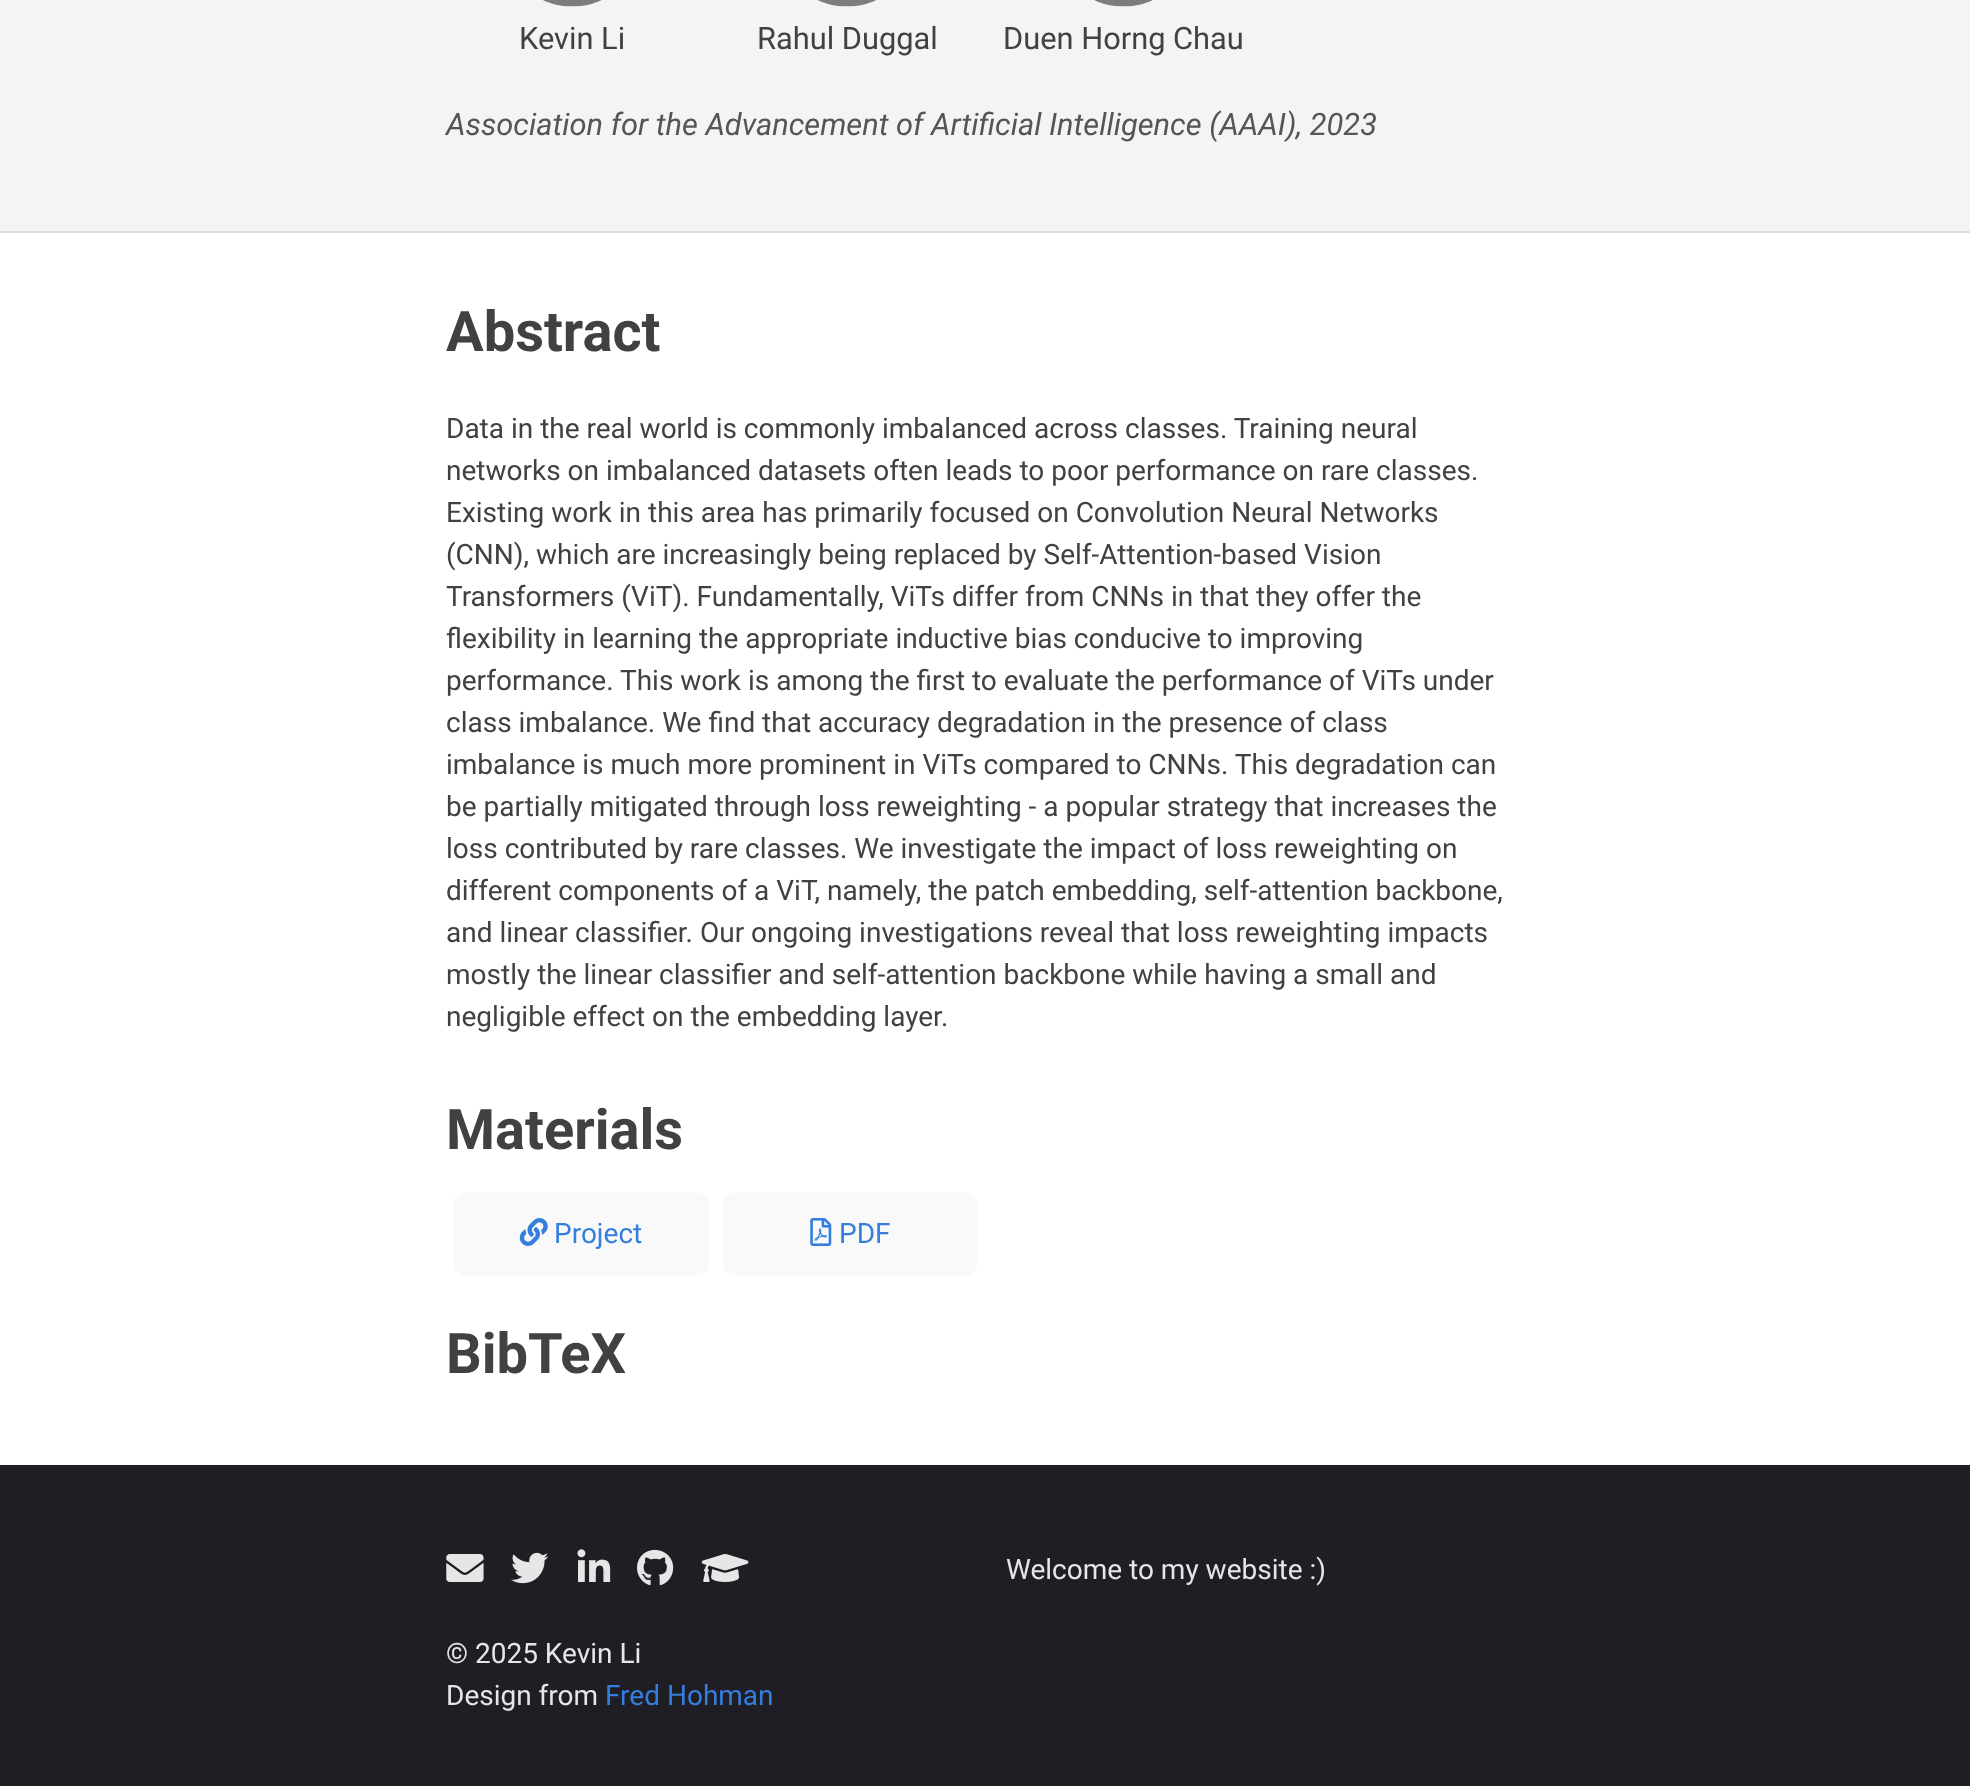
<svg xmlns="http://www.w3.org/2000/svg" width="1970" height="1786">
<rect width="100%" height="100%" fill="#fff"/>
<rect width="1970" height="231" fill="#f4f4f4"/>
<rect y="231" width="1970" height="2" fill="#ddd"/>
<image x="543" y="0" width="59" height="7" href="media/1.png"/>
<text x="519" y="49" style="font-family:Roboto;font-size:30.8px;fill:#414141">Kevin Li</text>
<image x="818" y="0" width="58" height="7" href="media/2.png"/>
<text x="757" y="49" style="font-family:Roboto;font-size:30.8px;fill:#414141">Rahul Duggal</text>
<image x="1094" y="0" width="59" height="7" href="media/3.png"/>
<text x="1003" y="49" style="font-family:Roboto;font-size:30.8px;fill:#414141">Duen Horng Chau</text>
<text x="446" y="135" style="font-family:Roboto;font-size:30.8px;font-style:italic;fill:#555">Association for the Advancement of Artificial Intelligence (AAAI), 2023</text>
<text x="446" y="351" style="font-family:Roboto;font-size:56px;font-weight:bold;fill:#414141">Abstract</text>
<text x="446" y="438" style="font-family:Roboto;font-size:28px;fill:#414141">Data in the real world is commonly imbalanced across classes. Training neural</text>
<text x="446" y="480" style="font-family:Roboto;font-size:28px;fill:#414141">networks on imbalanced datasets often leads to poor performance on rare classes.</text>
<text x="446" y="522" style="font-family:Roboto;font-size:28px;fill:#414141">Existing work in this area has primarily focused on Convolution Neural Networks</text>
<text x="446" y="564" style="font-family:Roboto;font-size:28px;fill:#414141">(CNN), which are increasingly being replaced by Self-Attention-based Vision</text>
<text x="446" y="606" style="font-family:Roboto;font-size:28px;fill:#414141">Transformers (ViT). Fundamentally, ViTs differ from CNNs in that they offer the</text>
<text x="446" y="648" style="font-family:Roboto;font-size:28px;fill:#414141">flexibility in learning the appropriate inductive bias conducive to improving</text>
<text x="446" y="690" style="font-family:Roboto;font-size:28px;fill:#414141">performance. This work is among the first to evaluate the performance of ViTs under</text>
<text x="446" y="732" style="font-family:Roboto;font-size:28px;fill:#414141">class imbalance. We find that accuracy degradation in the presence of class</text>
<text x="446" y="774" style="font-family:Roboto;font-size:28px;fill:#414141">imbalance is much more prominent in ViTs compared to CNNs. This degradation can</text>
<text x="446" y="816" style="font-family:Roboto;font-size:28px;fill:#414141">be partially mitigated through loss reweighting - a popular strategy that increases the</text>
<text x="446" y="858" style="font-family:Roboto;font-size:28px;fill:#414141">loss contributed by rare classes. We investigate the impact of loss reweighting on</text>
<text x="446" y="900" style="font-family:Roboto;font-size:28px;fill:#414141">different components of a ViT, namely, the patch embedding, self-attention backbone,</text>
<text x="446" y="942" style="font-family:Roboto;font-size:28px;fill:#414141">and linear classifier. Our ongoing investigations reveal that loss reweighting impacts</text>
<text x="446" y="984" style="font-family:Roboto;font-size:28px;fill:#414141">mostly the linear classifier and self-attention backbone while having a small and</text>
<text x="446" y="1026" style="font-family:Roboto;font-size:28px;fill:#414141">negligible effect on the embedding layer.</text>
<text x="446" y="1149" style="font-family:Roboto;font-size:56px;font-weight:bold;fill:#414141">Materials</text>
<rect x="453" y="1192" width="256" height="84" rx="14" fill="#f9f9f9"/>
<image x="519" y="1218" width="29" height="28" href="media/4.png"/>
<text x="554" y="1243" style="font-family:Roboto;font-size:28px;fill:#357edd">Project</text>
<rect x="723" y="1192" width="255" height="84" rx="14" fill="#f9f9f9"/>
<image x="810" y="1218" width="22" height="28" href="media/5.png"/>
<text x="839" y="1243" style="font-family:Roboto;font-size:28px;fill:#357edd">PDF</text>
<text x="446" y="1373" style="font-family:Roboto;font-size:56px;font-weight:bold;fill:#414141">BibTeX</text>
<rect y="1465" width="1970" height="321" fill="#1e1e24"/>
<text x="1006" y="1579" style="font-family:Roboto;font-size:28px;fill:#e6e6e6">Welcome to my website :)</text>
<image x="446" y="1554" width="38" height="28" href="media/6.png"/>
<image x="511" y="1552" width="38" height="32" href="media/7.png"/>
<image x="577" y="1549" width="34" height="33" href="media/8.png"/>
<image x="637" y="1549" width="37" height="37" href="media/9.png"/>
<image x="701" y="1554" width="48" height="28" href="media/10.png"/>
<text x="446" y="1663" style="font-family:Roboto;font-size:28px;fill:#e6e6e6">© 2025 Kevin Li</text>
<text x="446" y="1705" style="font-family:Roboto;font-size:28px;fill:#e6e6e6">Design from</text>
<text x="605" y="1705" style="font-family:Roboto;font-size:28px;fill:#357edd">Fred Hohman</text>
</svg>
